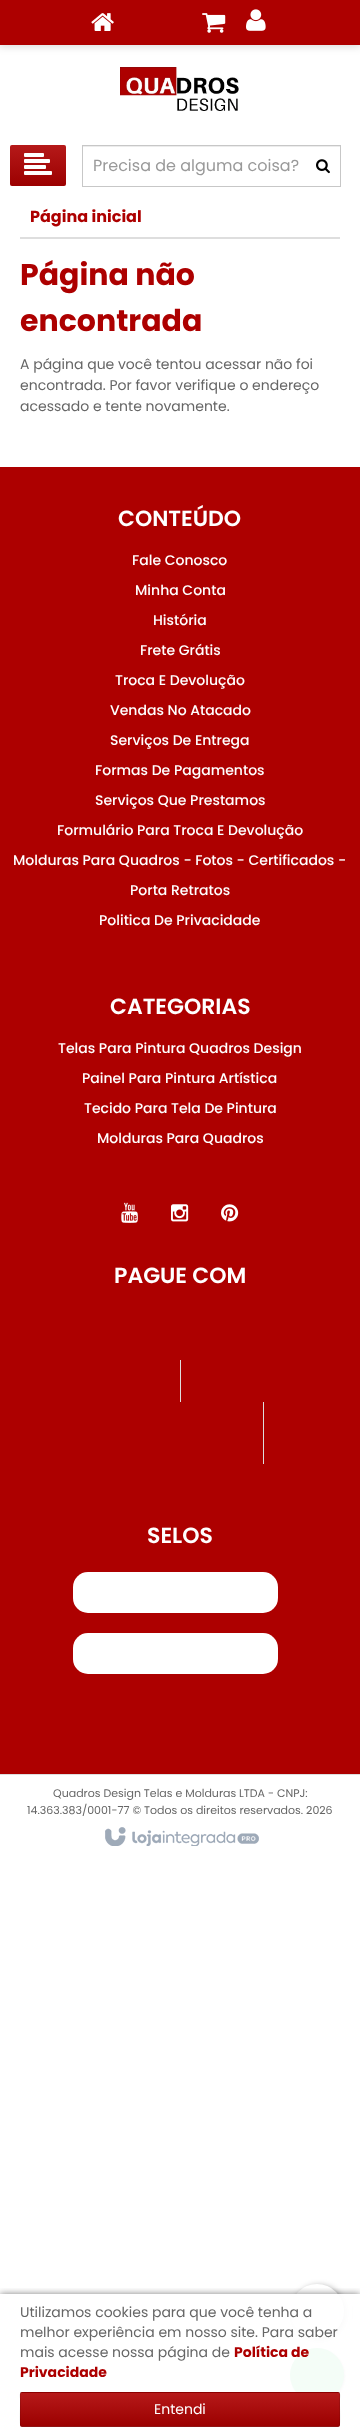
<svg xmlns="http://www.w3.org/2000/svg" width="360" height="2434">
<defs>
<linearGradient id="g1" gradientUnits="userSpaceOnUse" x1="38" y1="145" x2="38" y2="186"><stop offset="0" stop-color="#fff" stop-opacity="0.1"/><stop offset="1" stop-color="#000" stop-opacity="0.1"/></linearGradient>
<clipPath id="clip1"><rect x="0" y="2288" width="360" height="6"/></clipPath>
<linearGradient id="g2" gradientUnits="userSpaceOnUse" x1="180" y1="2360" x2="180" y2="2393"><stop offset="0" stop-color="#fff" stop-opacity="0.1"/><stop offset="1" stop-color="#000" stop-opacity="0.1"/></linearGradient>
<linearGradient id="g3" gradientUnits="userSpaceOnUse" x1="180" y1="2393" x2="180" y2="2426"><stop offset="0" stop-color="#fff" stop-opacity="0.1"/><stop offset="1" stop-color="#000" stop-opacity="0.1"/></linearGradient>
<linearGradient id="g4" gradientUnits="userSpaceOnUse" x1="180" y1="2426" x2="180" y2="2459"><stop offset="0" stop-color="#fff" stop-opacity="0.1"/><stop offset="1" stop-color="#000" stop-opacity="0.1"/></linearGradient>
</defs>
<rect width="100%" height="100%" fill="#fff"/>
<rect x="-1" y="-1" width="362" height="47" fill="#00000029" filter="blur(4.5px)"/>
<rect width="360" height="45" fill="#ad0000"/>
<image x="91" y="13" width="23" height="18" href="media/1.png"/>
<image x="202" y="13" width="24" height="20" href="media/2.png"/>
<image x="246" y="9" width="20" height="22" href="media/3.png"/>
<image x="120" y="67" width="119" height="44" href="media/4.png"/>
<rect x="10" y="145" width="56" height="41" rx="2" fill="#ad0000"/>
<rect x="10" y="145" width="56" height="41" rx="2" fill="url(#g1)"/>
<image x="24" y="153" width="28" height="22" href="media/5.png"/>
<rect x="83" y="146" width="257" height="1" fill="#ececec"/>
<rect x="82.5" y="145.5" width="258" height="41" fill="none" stroke="#c7c7c7"/>
<text x="93" y="171" style="font-family:Poppins;font-size:16px;fill:#999">Precisa de alguma coisa?</text>
<image x="316" y="159" width="14" height="15" href="media/6.png"/>
<rect x="20" y="237" width="320" height="2" fill="#dedede"/>
<text x="30" y="222" style="font-family:Poppins;font-size:16px;font-weight:bold;fill:#ad0000">Página inicial</text>
<text x="20" y="285" style="font-family:Poppins;font-size:30px;font-weight:bold;fill:#ad0000">Página não</text>
<text x="20" y="331" style="font-family:Poppins;font-size:30px;font-weight:bold;fill:#ad0000">encontrada</text>
<text x="20" y="369" style="font-family:Poppins;font-size:14px;fill:#666">A página que você tentou acessar não foi</text>
<text x="20" y="390" style="font-family:Poppins;font-size:14px;fill:#666">encontrada. Por favor verifique o endereço</text>
<text x="20" y="411" style="font-family:Poppins;font-size:14px;fill:#666">acessado e tente novamente.</text>
<rect y="467" width="360" height="1307" fill="#ad0000"/>
<text x="118" y="526" style="font-family:Poppins;font-size:22px;font-weight:600;fill:#fff">CONTEÚDO</text>
<text x="132" y="565" style="font-family:Poppins;font-size:14px;font-weight:500;fill:#fff">Fale Conosco</text>
<text x="135" y="595" style="font-family:Poppins;font-size:14px;font-weight:500;fill:#fff">Minha Conta</text>
<text x="153" y="625" style="font-family:Poppins;font-size:14px;font-weight:500;fill:#fff">História</text>
<text x="140" y="655" style="font-family:Poppins;font-size:14px;font-weight:500;fill:#fff">Frete Grátis</text>
<text x="115" y="685" style="font-family:Poppins;font-size:14px;font-weight:500;fill:#fff">Troca E Devolução</text>
<text x="110" y="715" style="font-family:Poppins;font-size:14px;font-weight:500;fill:#fff">Vendas No Atacado</text>
<text x="110" y="745" style="font-family:Poppins;font-size:14px;font-weight:500;fill:#fff">Serviços De Entrega</text>
<text x="95" y="775" style="font-family:Poppins;font-size:14px;font-weight:500;fill:#fff">Formas De Pagamentos</text>
<text x="95" y="805" style="font-family:Poppins;font-size:14px;font-weight:500;fill:#fff">Serviços Que Prestamos</text>
<text x="57" y="835" style="font-family:Poppins;font-size:14px;font-weight:500;fill:#fff">Formulário Para Troca E Devolução</text>
<text x="13" y="865" style="font-family:Poppins;font-size:14px;font-weight:500;fill:#fff">Molduras Para Quadros - Fotos - Certificados -</text>
<text x="130" y="895" style="font-family:Poppins;font-size:14px;font-weight:500;fill:#fff">Porta Retratos</text>
<text x="99" y="925" style="font-family:Poppins;font-size:14px;font-weight:500;fill:#fff">Politica De Privacidade</text>
<text x="110" y="1014" style="font-family:Poppins;font-size:22px;font-weight:600;fill:#fff">CATEGORIAS</text>
<text x="58" y="1053" style="font-family:Poppins;font-size:14px;font-weight:500;fill:#fff">Telas Para Pintura Quadros Design</text>
<text x="82" y="1083" style="font-family:Poppins;font-size:14px;font-weight:500;fill:#fff">Painel Para Pintura Artística</text>
<text x="84" y="1113" style="font-family:Poppins;font-size:14px;font-weight:500;fill:#fff">Tecido Para Tela De Pintura</text>
<text x="97" y="1143" style="font-family:Poppins;font-size:14px;font-weight:500;fill:#fff">Molduras Para Quadros</text>
<image x="121" y="1202" width="17" height="21" href="media/7.png"/>
<image x="171" y="1204" width="18" height="18" href="media/8.png"/>
<image x="221" y="1204" width="18" height="18" href="media/9.png"/>
<text x="114" y="1283" style="font-family:Poppins;font-size:22px;font-weight:600;fill:#fff">PAGUE COM</text>
<rect x="180" y="1360" width="1" height="42" fill="#ddd"/>
<rect x="263" y="1402" width="1" height="62" fill="#ddd"/>
<text x="147" y="1543" style="font-family:Poppins;font-size:22px;font-weight:600;fill:#fff">SELOS</text>
<rect x="73" y="1572" width="205" height="41" rx="15" fill="#fff"/>
<rect x="73" y="1633" width="205" height="41" rx="15" fill="#fff"/>
<rect y="1774" width="360" height="1" fill="#ddd"/>
<text x="53" y="1797" style="font-family:Poppins;font-size:11px;fill:#666">Quadros Design Telas e Molduras LTDA - CNPJ:</text>
<text x="27" y="1814" style="font-family:Poppins;font-size:11px;fill:#666">14.363.383/0001-77 © Todos os direitos reservados. 2026</text>
<image x="105" y="1827" width="154" height="19" href="media/10.png"/>
<rect x="291" y="2349" width="54" height="54" rx="27" fill="#888" filter="blur(1px)"/>
<rect x="292" y="2286" width="54" height="54" rx="27" fill="#00000066" filter="blur(3px)"/>
<circle cx="317" cy="2375" r="27" fill="#25d366"/>
<circle cx="317" cy="2311" r="27" fill="#fff"/>
<g clip-path="url(#clip1)">
<rect y="2294" width="360" height="140" fill="#00000080" filter="blur(3.5px)"/>
</g>
<rect x="286" y="2294" width="66" height="111" fill="#fffffff2"/>
<text x="20" y="2317" style="font-family:Poppins;font-size:14px;fill:#666">Utilizamos cookies para que você tenha a</text>
<text x="20" y="2337" style="font-family:Poppins;font-size:14px;fill:#666">melhor experiência em nosso site. Para saber</text>
<text x="20" y="2357" style="font-family:Poppins;font-size:14px;fill:#666">mais acesse nossa página de</text>
<text x="234" y="2357" style="font-family:Poppins;font-size:14px;font-weight:bold;fill:#ad0000">Política de</text>
<text x="20" y="2377" style="font-family:Poppins;font-size:14px;font-weight:bold;fill:#ad0000">Privacidade</text>
<rect x="20" y="2392" width="320" height="35" rx="2" fill="#ad0000"/>
<rect x="20" y="2392" width="320" height="1" fill="url(#g2)"/>
<rect x="20" y="2393" width="320" height="33" fill="url(#g3)"/>
<rect x="20" y="2426" width="320" height="1" fill="url(#g4)"/>
<path d="M339 2426l-1 .5h-316l-1-.5" fill="none" stroke="#00000033"/>
<path d="M21 2426c-1.5-1-.5-19-.5-21.5v-5.5c0 0-1.5-6.5 1.5-6.5h316c3 0 1.5 6.5 1.5 6.5v5.5c0 2.5 1 20.5-.5 21.5" fill="none" stroke="#0000001a"/>
<text x="154" y="2414" style="font-family:Poppins;font-size:14px;fill:#fff">Entendi</text>
</svg>
